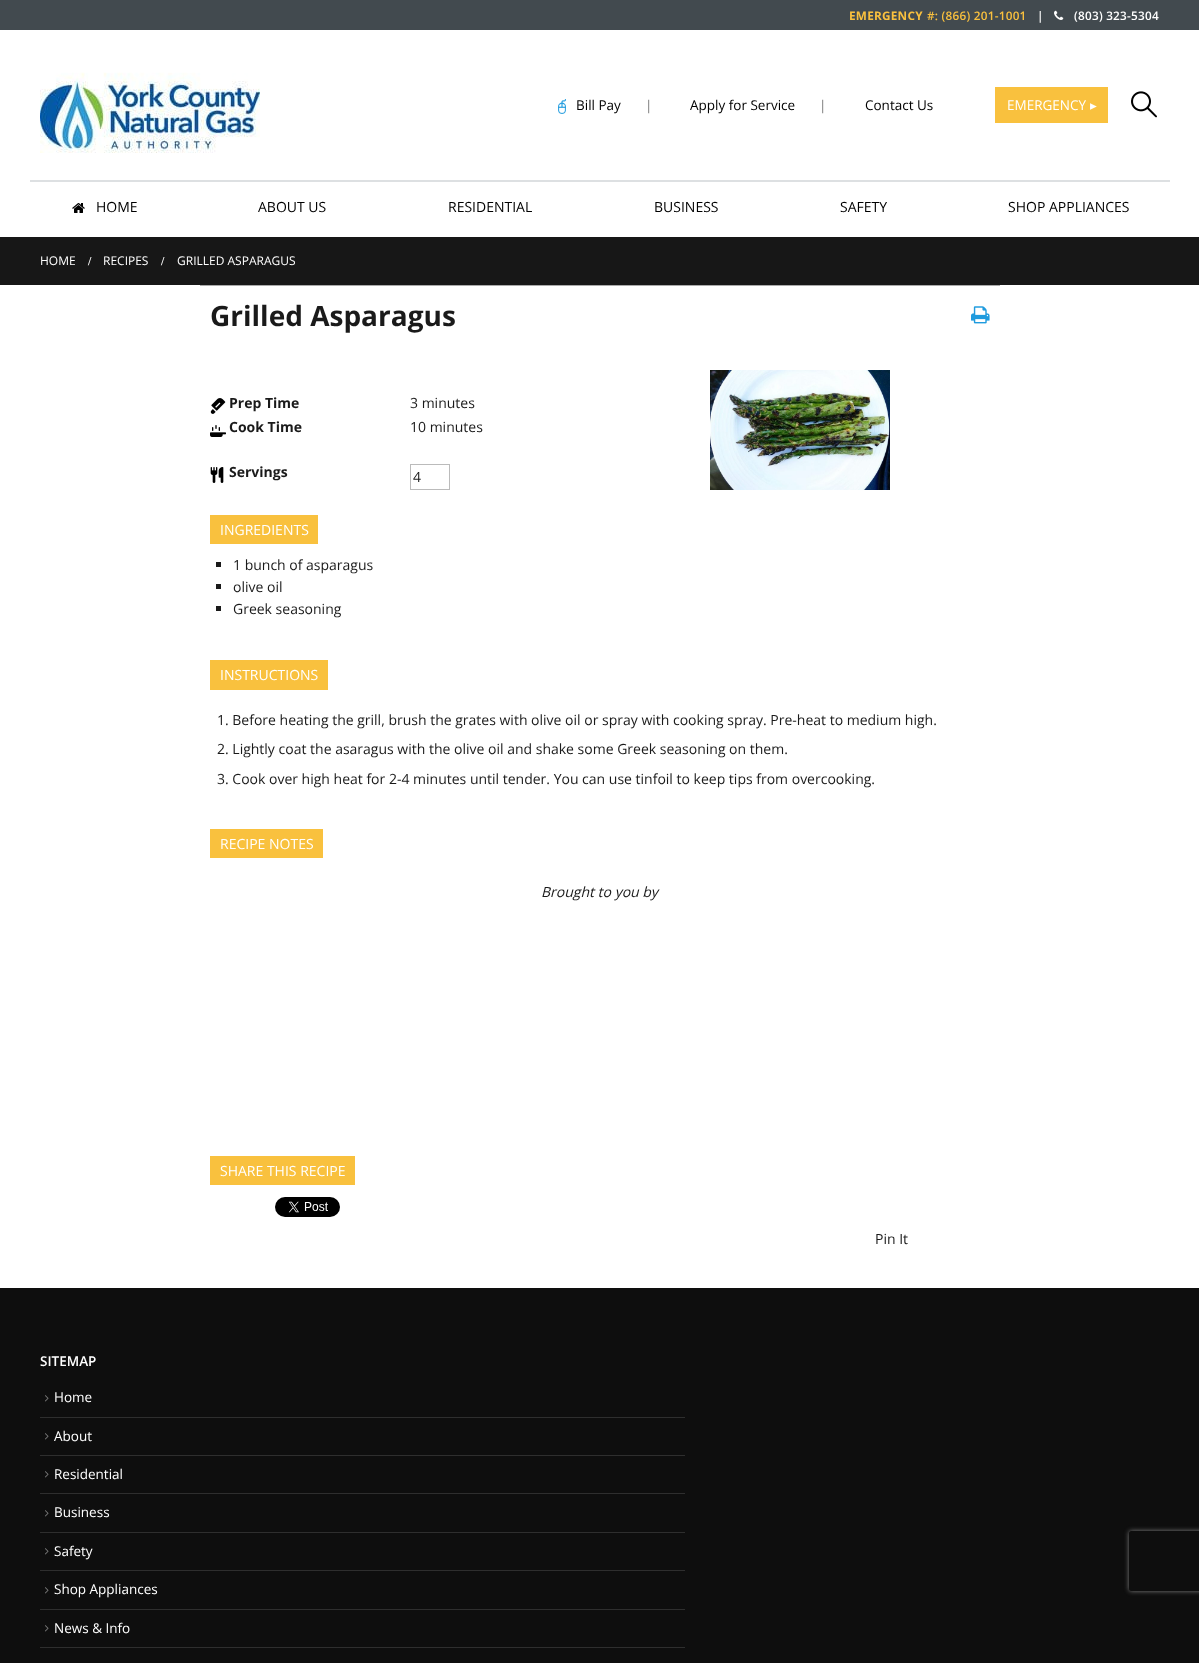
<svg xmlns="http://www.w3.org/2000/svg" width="1199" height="1663">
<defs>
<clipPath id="clip1"><path d="M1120 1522h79v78h-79zm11 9h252c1 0 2 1 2 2v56c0 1-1 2-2 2h-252c-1 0-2-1-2-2v-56c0-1 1-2 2-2z" clip-rule="evenodd"/></clipPath>
</defs>
<rect width="100%" height="100%" fill="#fff"/>
<rect width="1199" height="30" fill="#424a4f"/>
<text x="849" y="20" style="font-family:Open Sans;font-size:11.75px;font-weight:bold;letter-spacing:0.25px;fill:#f9c03e">EMERGENCY</text>
<text x="927" y="20" style="font-family:Open Sans;font-size:11.75px;font-weight:600;letter-spacing:0.25px;fill:#f9c03e">#: (866) 201-1001</text>
<text x="1037" y="20" style="font-family:Open Sans;font-size:11.75px;font-weight:600;letter-spacing:0.25px;fill:#fff">|</text>
<image x="1054" y="10" width="10" height="10" href="media/1.png"/>
<text x="1074" y="20" style="font-family:Open Sans;font-size:11.75px;font-weight:600;letter-spacing:0.25px;fill:#fff">(803) 323-5304</text>
<rect x="30" y="180" width="1140" height="2" fill="#dde0e2"/>
<image x="40" y="72" width="220" height="81" href="media/2.png"/>
<image x="558" y="99" width="8" height="15" href="media/3.png"/>
<text x="576" y="110" style="font-family:Open Sans;font-size:13.5px;fill:#000">Bill Pay</text>
<text x="645" y="110" style="font-family:Open Sans;font-size:13.5px;fill:#777">|</text>
<text x="690" y="110" style="font-family:Open Sans;font-size:13.5px;fill:#000">Apply for Service</text>
<text x="819" y="110" style="font-family:Open Sans;font-size:13.5px;fill:#777">|</text>
<text x="865" y="110" style="font-family:Open Sans;font-size:13.5px;fill:#000">Contact Us</text>
<rect x="995" y="87" width="113" height="36" fill="#f9c13e"/>
<text x="1007" y="110" style="font-family:Open Sans;font-size:13.5px;fill:#fff">EMERGENCY</text>
<text x="1090" y="110" style="font-family:DejaVu Sans;font-size:13.5px;fill:#fff">▸</text>
<image x="1131" y="91" width="26" height="27" href="media/4.png"/>
<image x="72" y="203" width="13" height="10" href="media/5.png"/>
<text x="96" y="212" style="font-family:Open Sans;font-size:14px;fill:#000">HOME</text>
<text x="258" y="212" style="font-family:Open Sans;font-size:14px;fill:#000">ABOUT US</text>
<text x="448" y="212" style="font-family:Open Sans;font-size:14px;fill:#000">RESIDENTIAL</text>
<text x="654" y="212" style="font-family:Open Sans;font-size:14px;fill:#000">BUSINESS</text>
<text x="840" y="212" style="font-family:Open Sans;font-size:14px;fill:#000">SAFETY</text>
<text x="1008" y="212" style="font-family:Open Sans;font-size:14px;fill:#000">SHOP APPLIANCES</text>
<rect y="237" width="1199" height="48" fill="#171717"/>
<text x="40" y="265" style="font-family:Open Sans;font-size:12px;fill:#fff">HOME</text>
<text x="88" y="265" style="font-family:Liberation Serif;font-size:12px;font-weight:bold;fill:#fff">/</text>
<text x="103" y="265" style="font-family:Open Sans;font-size:12px;fill:#fff">RECIPES</text>
<text x="161" y="265" style="font-family:Liberation Serif;font-size:12px;font-weight:bold;fill:#fff">/</text>
<text x="177" y="265" style="font-family:Open Sans;font-size:12px;fill:#fff">GRILLED ASPARAGUS</text>
<rect x="200" y="285" width="800" height="1" fill="#aaa"/>
<text x="210" y="326" style="font-family:Open Sans;font-size:28px;font-weight:bold;fill:#1a1a1a">Grilled Asparagus</text>
<image x="971" y="306" width="19" height="18" href="media/6.png"/>
<image x="210" y="398" width="16" height="16" href="media/7.png"/>
<text x="229" y="408" style="font-family:Open Sans;font-size:14px;font-weight:bold;fill:#1a1a1a">Prep Time</text>
<text x="410" y="408" style="font-family:Open Sans;font-size:14px;fill:#1a1a1a">3 minutes</text>
<image x="210" y="425" width="16" height="12" href="media/8.png"/>
<text x="229" y="432" style="font-family:Open Sans;font-size:14px;font-weight:bold;fill:#1a1a1a">Cook Time</text>
<text x="410" y="432" style="font-family:Open Sans;font-size:14px;fill:#1a1a1a">10 minutes</text>
<image x="210" y="467" width="14" height="16" href="media/9.png"/>
<text x="229" y="477" style="font-family:Open Sans;font-size:14px;font-weight:bold;fill:#1a1a1a">Servings</text>
<rect x="410.5" y="464.5" width="39" height="25" fill="none" stroke="#bbb"/>
<text x="413" y="482" style="font-family:Open Sans;font-size:14px;fill:#1a1a1a">4</text>
<rect x="210" y="515" width="108" height="29" fill="#f9c13e"/>
<text x="220" y="535" style="font-family:Open Sans;font-size:14px;fill:#fff">INGREDIENTS</text>
<rect x="216" y="562" width="5" height="5" fill="#1a1a1a"/>
<text x="233" y="570" style="font-family:Open Sans;font-size:14px;fill:#1a1a1a">1 bunch of asparagus</text>
<rect x="216" y="584" width="5" height="5" fill="#1a1a1a"/>
<text x="233" y="592" style="font-family:Open Sans;font-size:14px;fill:#1a1a1a">olive oil</text>
<rect x="216" y="606" width="5" height="5" fill="#1a1a1a"/>
<text x="233" y="614" style="font-family:Open Sans;font-size:14px;fill:#1a1a1a">Greek seasoning</text>
<image x="710" y="370" width="180" height="120" href="media/10.png"/>
<rect x="210" y="660" width="118" height="30" fill="#f9c13e"/>
<text x="220" y="680" style="font-family:Open Sans;font-size:14px;fill:#fff">INSTRUCTIONS</text>
<text x="217" y="725" style="font-family:Open Sans;font-size:14px;fill:#1a1a1a">1. Before heating the grill, brush the grates with olive oil or spray with cooking spray. Pre-heat to medium high.</text>
<text x="217" y="754" style="font-family:Open Sans;font-size:14px;fill:#1a1a1a">2. Lightly coat the asaragus with the olive oil and shake some Greek seasoning on them.</text>
<text x="217" y="784" style="font-family:Open Sans;font-size:14px;fill:#1a1a1a">3. Cook over high heat for 2-4 minutes until tender. You can use tinfoil to keep tips from overcooking.</text>
<rect x="210" y="829" width="113" height="29" fill="#f9c13e"/>
<text x="220" y="849" style="font-family:Open Sans;font-size:14px;fill:#fff">RECIPE NOTES</text>
<text x="541" y="897" style="font-family:Open Sans;font-size:14px;font-style:italic;fill:#1a1a1a">Brought to you by</text>
<rect x="210" y="1156" width="145" height="29" fill="#f9c13e"/>
<text x="220" y="1176" style="font-family:Open Sans;font-size:14px;fill:#fff">SHARE THIS RECIPE</text>
<image x="275" y="1197" width="65" height="20" href="media/11.png"/>
<text x="875" y="1244" style="font-family:Open Sans;font-size:14px;fill:#1a1a1a">Pin It</text>
<rect y="1288" width="1199" height="375" fill="#0e0e0e"/>
<text x="40" y="1366" style="font-family:Open Sans;font-size:13.5px;font-weight:600;fill:#fff">SITEMAP</text>
<image x="45" y="1395" width="4" height="7" href="media/12.png"/>
<text x="54" y="1402" style="font-family:Open Sans;font-size:13.5px;fill:#fff">Home</text>
<rect x="40" y="1417" width="645" height="1" fill="#2e2e2e"/>
<image x="45" y="1433" width="4" height="7" href="media/12.png"/>
<text x="54" y="1441" style="font-family:Open Sans;font-size:13.5px;fill:#fff">About</text>
<rect x="40" y="1455" width="645" height="1" fill="#2e2e2e"/>
<image x="45" y="1471" width="4" height="7" href="media/12.png"/>
<text x="54" y="1479" style="font-family:Open Sans;font-size:13.5px;fill:#fff">Residential</text>
<rect x="40" y="1493" width="645" height="1" fill="#2e2e2e"/>
<image x="45" y="1510" width="4" height="7" href="media/12.png"/>
<text x="54" y="1517" style="font-family:Open Sans;font-size:13.5px;fill:#fff">Business</text>
<rect x="40" y="1532" width="645" height="1" fill="#2e2e2e"/>
<image x="45" y="1548" width="4" height="7" href="media/12.png"/>
<text x="54" y="1556" style="font-family:Open Sans;font-size:13.5px;fill:#fff">Safety</text>
<rect x="40" y="1570" width="645" height="1" fill="#2e2e2e"/>
<image x="45" y="1587" width="4" height="7" href="media/12.png"/>
<text x="54" y="1594" style="font-family:Open Sans;font-size:13.5px;fill:#fff">Shop Appliances</text>
<rect x="40" y="1609" width="645" height="1" fill="#2e2e2e"/>
<image x="45" y="1625" width="4" height="7" href="media/12.png"/>
<text x="54" y="1633" style="font-family:Open Sans;font-size:13.5px;fill:#fff">News &amp; Info</text>
<rect x="40" y="1647" width="645" height="1" fill="#2e2e2e"/>
<g clip-path="url(#clip1)">
<rect x="1129" y="1531" width="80" height="60" rx="2" fill="#808080" filter="blur(2.5px)"/>
</g>
</svg>
